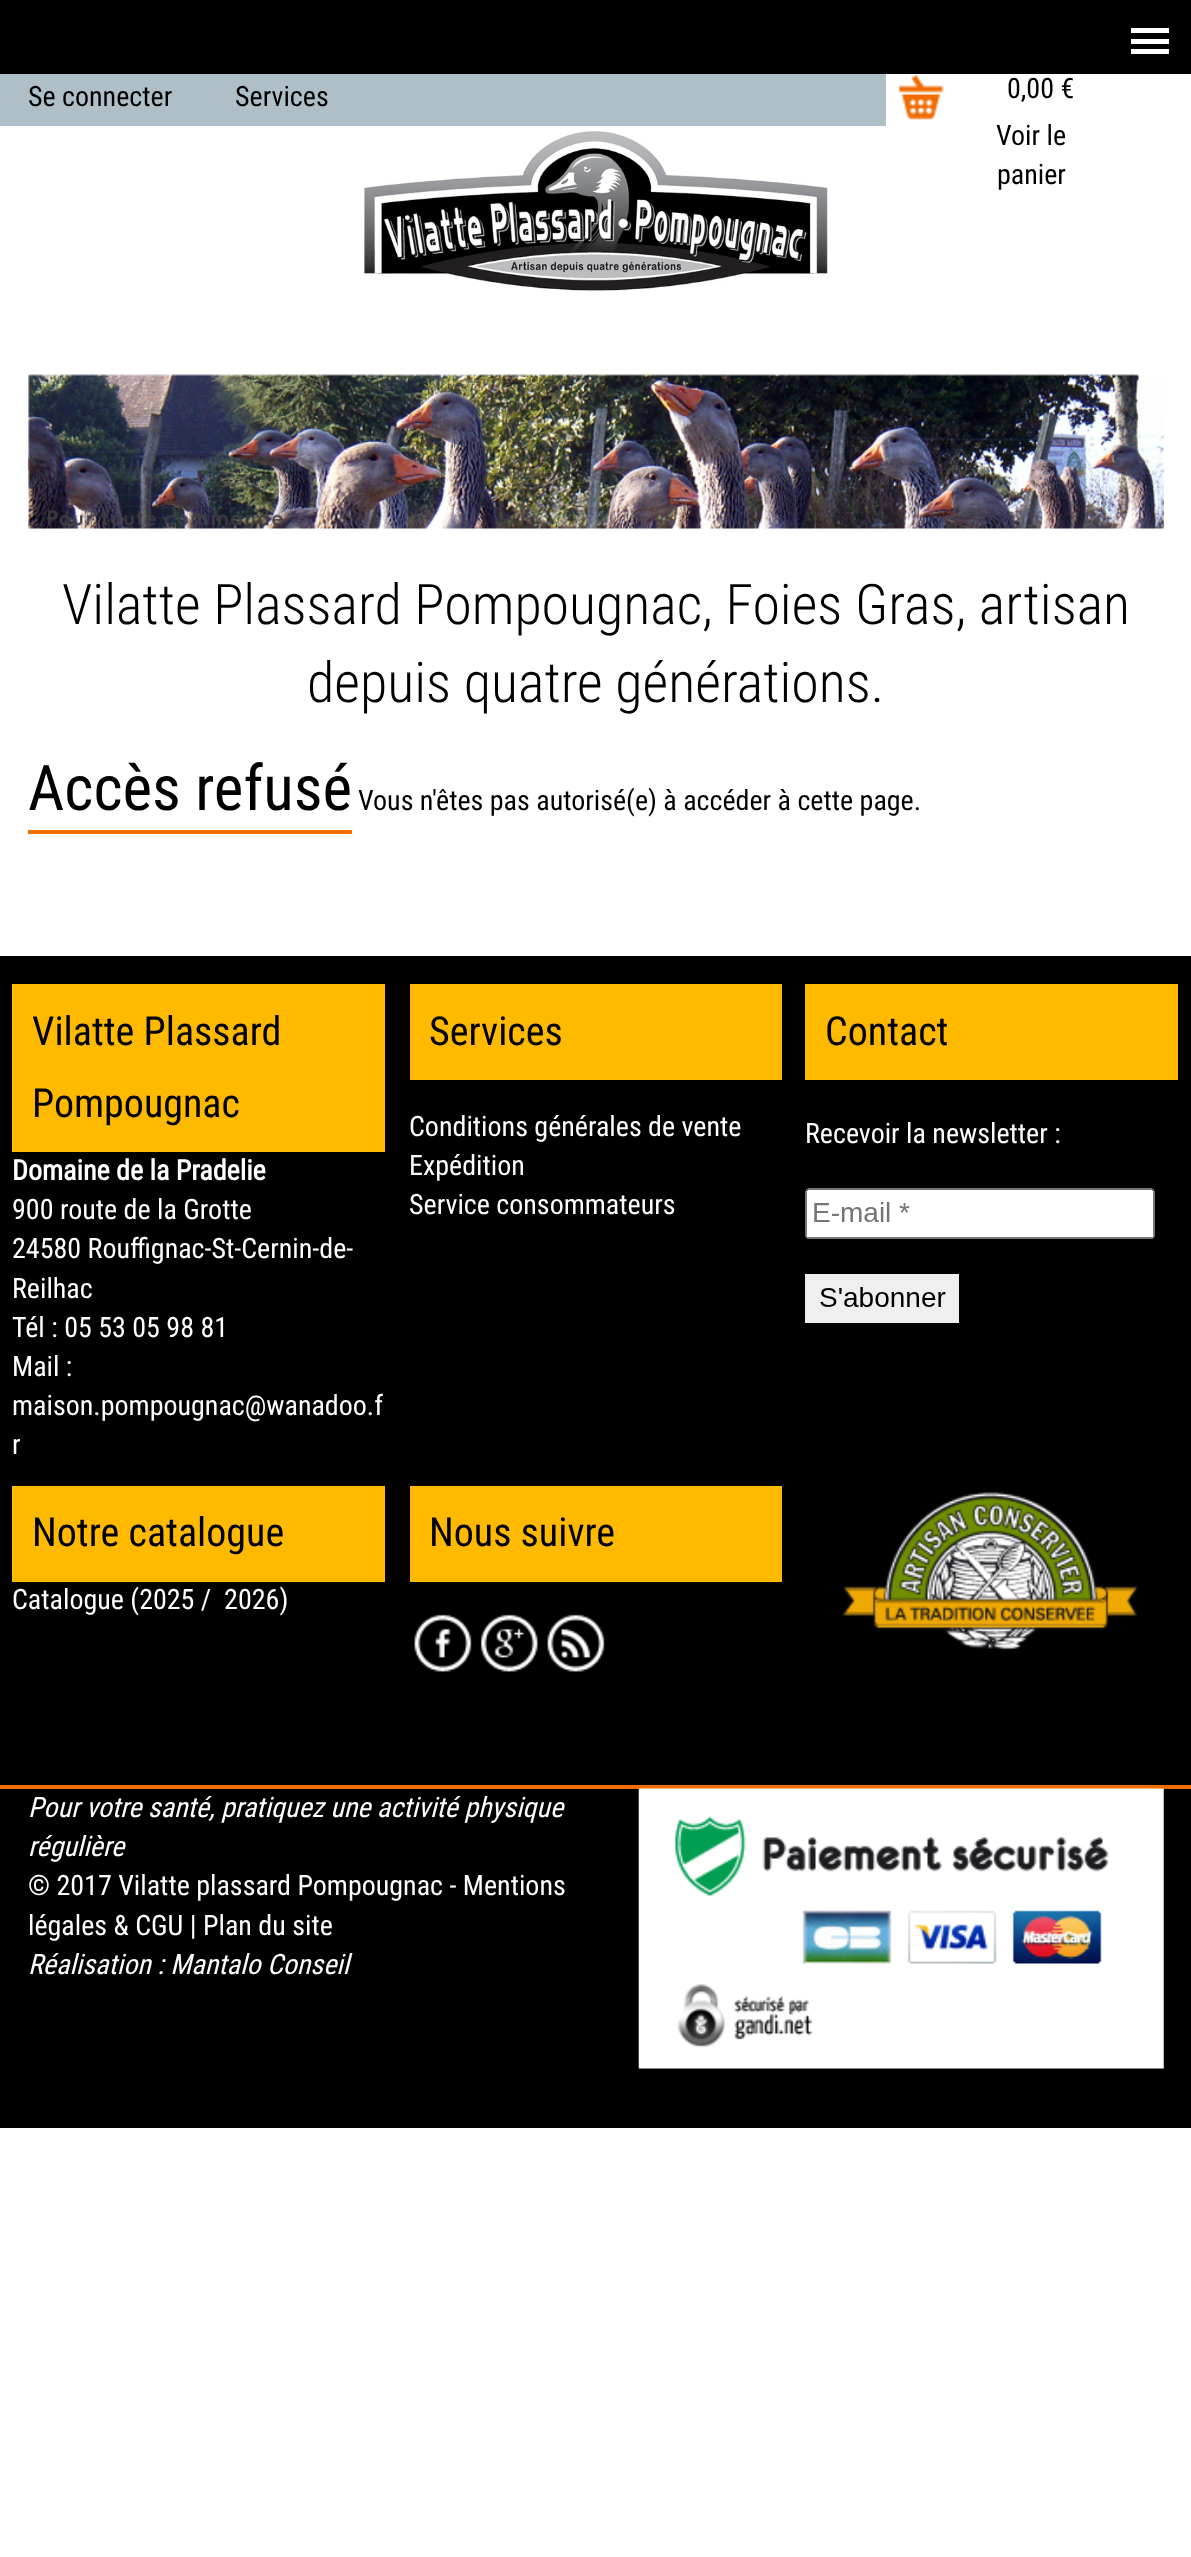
<svg xmlns="http://www.w3.org/2000/svg" width="1191" height="2557">
<rect width="100%" height="100%" fill="#fff"/>
<rect width="1191" height="74" fill="#000"/>
<rect x="1131" y="28" width="38" height="5" fill="#fff"/>
<rect x="1131" y="39" width="38" height="5" fill="#fff"/>
<rect x="1131" y="49" width="38" height="5" fill="#fff"/>
<rect y="74" width="886" height="52" fill="#afbfc8"/>
<text x="28" y="106" style="font-family:Roboto Condensed;font-size:28px;fill:#000">Se connecter</text>
<text x="235" y="106" style="font-family:Roboto Condensed;font-size:28px;fill:#000">Services</text>
<image x="898" y="75" width="46" height="45" href="media/1.png"/>
<text x="1007" y="98" style="font-family:Roboto Condensed;font-size:28px;fill:#000">0,00 €</text>
<text x="996" y="145" style="font-family:Roboto Condensed;font-size:28px;fill:#000">Voir le</text>
<text x="997" y="184" style="font-family:Roboto Condensed;font-size:28px;fill:#000">panier</text>
<image x="364" y="131" width="464" height="160" href="media/2.png"/>
<image x="28" y="374" width="1136" height="155" href="media/3.png"/>
<text x="62" y="624" style="font-family:Roboto Condensed;font-size:56px;font-weight:300;fill:#000">Vilatte Plassard Pompougnac, Foies Gras, artisan</text>
<text x="307" y="702" style="font-family:Roboto Condensed;font-size:56px;font-weight:300;fill:#000">depuis quatre générations.</text>
<rect x="28" y="830" width="324" height="4" fill="#f16d03"/>
<text x="28" y="810" style="font-family:Roboto Condensed;font-size:63px;fill:#000">Accès refusé</text>
<text x="358" y="810" style="font-family:Roboto Condensed;font-size:28px;fill:#000">Vous n'êtes pas autorisé(e) à accéder à cette page.</text>
<rect y="956" width="1191" height="1172" fill="#000"/>
<rect y="1785" width="1191" height="4" fill="#f16d03"/>
<rect x="12" y="984" width="373" height="168" fill="#ffba00"/>
<text x="32" y="1045" style="font-family:Roboto Condensed;font-size:40px;fill:#000">Vilatte Plassard</text>
<text x="32" y="1117" style="font-family:Roboto Condensed;font-size:40px;fill:#000">Pompougnac</text>
<text x="12" y="1180" style="font-family:Roboto Condensed;font-size:28px;font-weight:bold;fill:#fff">Domaine de la Pradelie</text>
<text x="12" y="1219" style="font-family:Roboto Condensed;font-size:28px;fill:#fff">900 route de la Grotte</text>
<text x="12" y="1258" style="font-family:Roboto Condensed;font-size:28px;fill:#fff">24580 Rouffignac-St-Cernin-de-</text>
<text x="12" y="1298" style="font-family:Roboto Condensed;font-size:28px;fill:#fff">Reilhac</text>
<text x="12" y="1337" style="font-family:Roboto Condensed;font-size:28px;fill:#fff">Tél : 05 53 05 98 81</text>
<text x="12" y="1376" style="font-family:Roboto Condensed;font-size:28px;fill:#fff">Mail :</text>
<text x="12" y="1415" style="font-family:Roboto Condensed;font-size:28px;fill:#fff">maison.pompougnac@wanadoo.f</text>
<text x="12" y="1454" style="font-family:Roboto Condensed;font-size:28px;fill:#fff">r</text>
<rect x="410" y="984" width="372" height="96" fill="#ffba00"/>
<text x="429" y="1045" style="font-family:Roboto Condensed;font-size:40px;fill:#000">Services</text>
<text x="409" y="1136" style="font-family:Roboto Condensed;font-size:28px;fill:#fff">Conditions générales de vente</text>
<text x="409" y="1175" style="font-family:Roboto Condensed;font-size:28px;fill:#fff">Expédition</text>
<text x="409" y="1214" style="font-family:Roboto Condensed;font-size:28px;fill:#fff">Service consommateurs</text>
<rect x="805" y="984" width="373" height="96" fill="#ffba00"/>
<text x="825" y="1045" style="font-family:Roboto Condensed;font-size:40px;fill:#000">Contact</text>
<image x="805" y="1122" width="350" height="201" href="media/4.png"/>
<rect x="12" y="1486" width="373" height="96" fill="#ffba00"/>
<text x="32" y="1546" style="font-family:Roboto Condensed;font-size:40px;fill:#000">Notre catalogue</text>
<text x="12" y="1609" style="font-family:Roboto Condensed;font-size:28px;fill:#fff" xml:space="preserve">Catalogue (2025 /  2026)</text>
<rect x="410" y="1486" width="372" height="96" fill="#ffba00"/>
<text x="429" y="1546" style="font-family:Roboto Condensed;font-size:40px;fill:#000">Nous suivre</text>
<image x="414" y="1614" width="58" height="58" href="media/5.png"/>
<image x="480" y="1614" width="58" height="58" href="media/6.png"/>
<image x="547" y="1614" width="58" height="58" href="media/7.png"/>
<image x="841" y="1491" width="297" height="160" href="media/8.png"/>
<text x="28" y="1817" style="font-family:Roboto Condensed;font-size:28px;font-style:italic;fill:#fff">Pour votre santé, pratiquez une activité physique</text>
<text x="28" y="1856" style="font-family:Roboto Condensed;font-size:28px;font-style:italic;fill:#fff">régulière</text>
<text x="28" y="1895" style="font-family:Roboto Condensed;font-size:28px;fill:#fff">© 2017 Vilatte plassard Pompougnac - Mentions</text>
<text x="28" y="1935" style="font-family:Roboto Condensed;font-size:28px;fill:#fff">légales &amp; CGU | Plan du site</text>
<text x="28" y="1974" style="font-family:Roboto Condensed;font-size:28px;font-style:italic;fill:#fff">Réalisation : Mantalo Conseil</text>
<image x="638" y="1788" width="526" height="281" href="media/9.png"/>
</svg>
